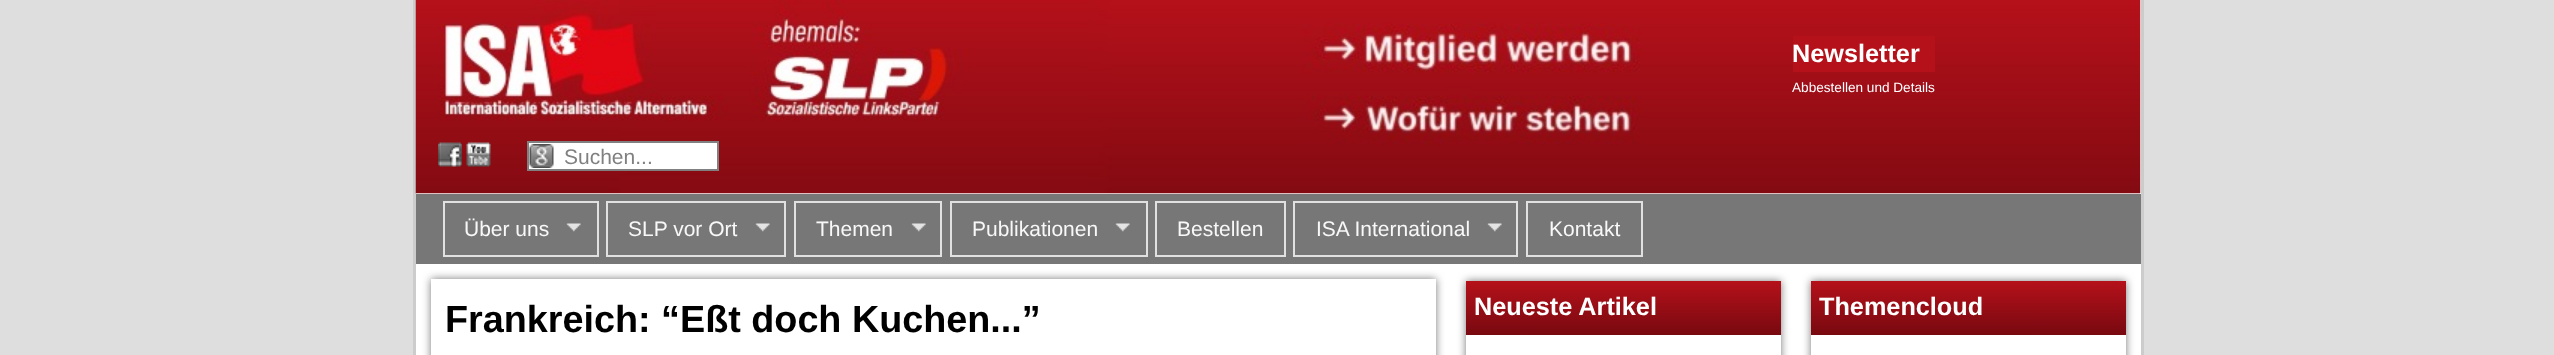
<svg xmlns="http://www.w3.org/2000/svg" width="2554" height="355">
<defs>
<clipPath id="clip1"><path d="M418 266h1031v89h-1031zm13 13h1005v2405h-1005z" clip-rule="evenodd"/></clipPath>
<clipPath id="clip2"><path d="M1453 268h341v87h-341zm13 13h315v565h-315z" clip-rule="evenodd"/></clipPath>
<linearGradient id="g1" gradientUnits="userSpaceOnUse" x1="1623" y1="281" x2="1623" y2="335"><stop offset="0" stop-color="#b5111a"/><stop offset="1" stop-color="#780910"/></linearGradient>
<clipPath id="clip3"><path d="M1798 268h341v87h-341zm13 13h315v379h-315z" clip-rule="evenodd"/></clipPath>
<linearGradient id="g2" gradientUnits="userSpaceOnUse" x1="1968" y1="281" x2="1968" y2="335"><stop offset="0" stop-color="#b5111a"/><stop offset="1" stop-color="#780910"/></linearGradient>
</defs>
<rect width="100%" height="100%" fill="#dedede"/>
<rect x="416" width="1725" height="355" fill="#fff"/>
<rect x="2141" width="3" height="355" fill="#ccc"/>
<rect x="413" width="3" height="355" fill="#ccc"/>
<image x="415" y="0" width="1726" height="194" href="media/1.png"/>
<rect x="1793" y="36" width="142" height="36" fill="#b5111a"/>
<text x="1792" y="62" style="font-family:Liberation Sans;font-size:25.25px;font-weight:bold;fill:#fff">Newsletter</text>
<text x="1792" y="92" style="font-family:Liberation Sans;font-size:13.6px;fill:#fff">Abbestellen und Details</text>
<image x="438" y="142" width="24" height="25" href="media/2.png"/>
<image x="466" y="142" width="25" height="25" href="media/3.png"/>
<rect x="529" y="143" width="188" height="26" fill="#fff"/>
<image x="529" y="144" width="25" height="24" href="media/4.png"/>
<rect x="528" y="142" width="190" height="28" fill="none" stroke="#808080" stroke-width="2"/>
<text x="564" y="164" style="font-family:Liberation Sans;font-size:21px;fill:#808080">Suchen...</text>
<rect x="416" y="194" width="1725" height="70" fill="#777"/>
<rect x="444" y="202" width="154" height="54" fill="none" stroke="#e1e1e1" stroke-width="2"/>
<text x="464" y="236" style="font-family:Liberation Sans;font-size:21px;fill:#f8f8f8">Über uns</text>
<image x="566" y="223" width="15" height="9" href="media/5.png"/>
<rect x="607" y="202" width="178" height="54" fill="none" stroke="#e1e1e1" stroke-width="2"/>
<text x="628" y="236" style="font-family:Liberation Sans;font-size:21px;fill:#f8f8f8">SLP vor Ort</text>
<image x="755" y="223" width="15" height="9" href="media/6.png"/>
<rect x="795" y="202" width="146" height="54" fill="none" stroke="#e1e1e1" stroke-width="2"/>
<text x="816" y="236" style="font-family:Liberation Sans;font-size:21px;fill:#f8f8f8">Themen</text>
<image x="911" y="223" width="15" height="9" href="media/7.png"/>
<rect x="951" y="202" width="196" height="54" fill="none" stroke="#e1e1e1" stroke-width="2"/>
<text x="972" y="236" style="font-family:Liberation Sans;font-size:21px;fill:#f8f8f8">Publikationen</text>
<image x="1115" y="223" width="15" height="9" href="media/5.png"/>
<rect x="1156" y="202" width="129" height="54" fill="none" stroke="#e1e1e1" stroke-width="2"/>
<text x="1177" y="236" style="font-family:Liberation Sans;font-size:21px;fill:#f8f8f8">Bestellen</text>
<rect x="1294" y="202" width="223" height="54" fill="none" stroke="#e1e1e1" stroke-width="2"/>
<text x="1316" y="236" style="font-family:Liberation Sans;font-size:21px;fill:#f8f8f8">ISA International</text>
<image x="1487" y="223" width="15" height="9" href="media/5.png"/>
<rect x="1527" y="202" width="115" height="54" fill="none" stroke="#e1e1e1" stroke-width="2"/>
<text x="1549" y="236" style="font-family:Liberation Sans;font-size:21px;fill:#f8f8f8">Kontakt</text>
<g clip-path="url(#clip1)">
<rect x="431" y="279" width="1005" height="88" fill="#777" filter="blur(4px)"/>
</g>
<text x="445" y="332" style="font-family:Liberation Sans;font-size:37.75px;font-weight:bold;fill:#000">Frankreich: “Eßt doch Kuchen...”</text>
<g clip-path="url(#clip2)">
<rect x="1466" y="281" width="315" height="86" fill="#777" filter="blur(4px)"/>
</g>
<rect x="1466" y="281" width="315" height="54" fill="url(#g1)"/>
<text x="1474" y="315" style="font-family:Liberation Sans;font-size:25.25px;font-weight:bold;fill:#fff">Neueste Artikel</text>
<g clip-path="url(#clip3)">
<rect x="1811" y="281" width="315" height="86" fill="#777" filter="blur(4px)"/>
</g>
<rect x="1811" y="281" width="315" height="54" fill="url(#g2)"/>
<text x="1819" y="315" style="font-family:Liberation Sans;font-size:25.25px;font-weight:bold;fill:#fff">Themencloud</text>
</svg>
